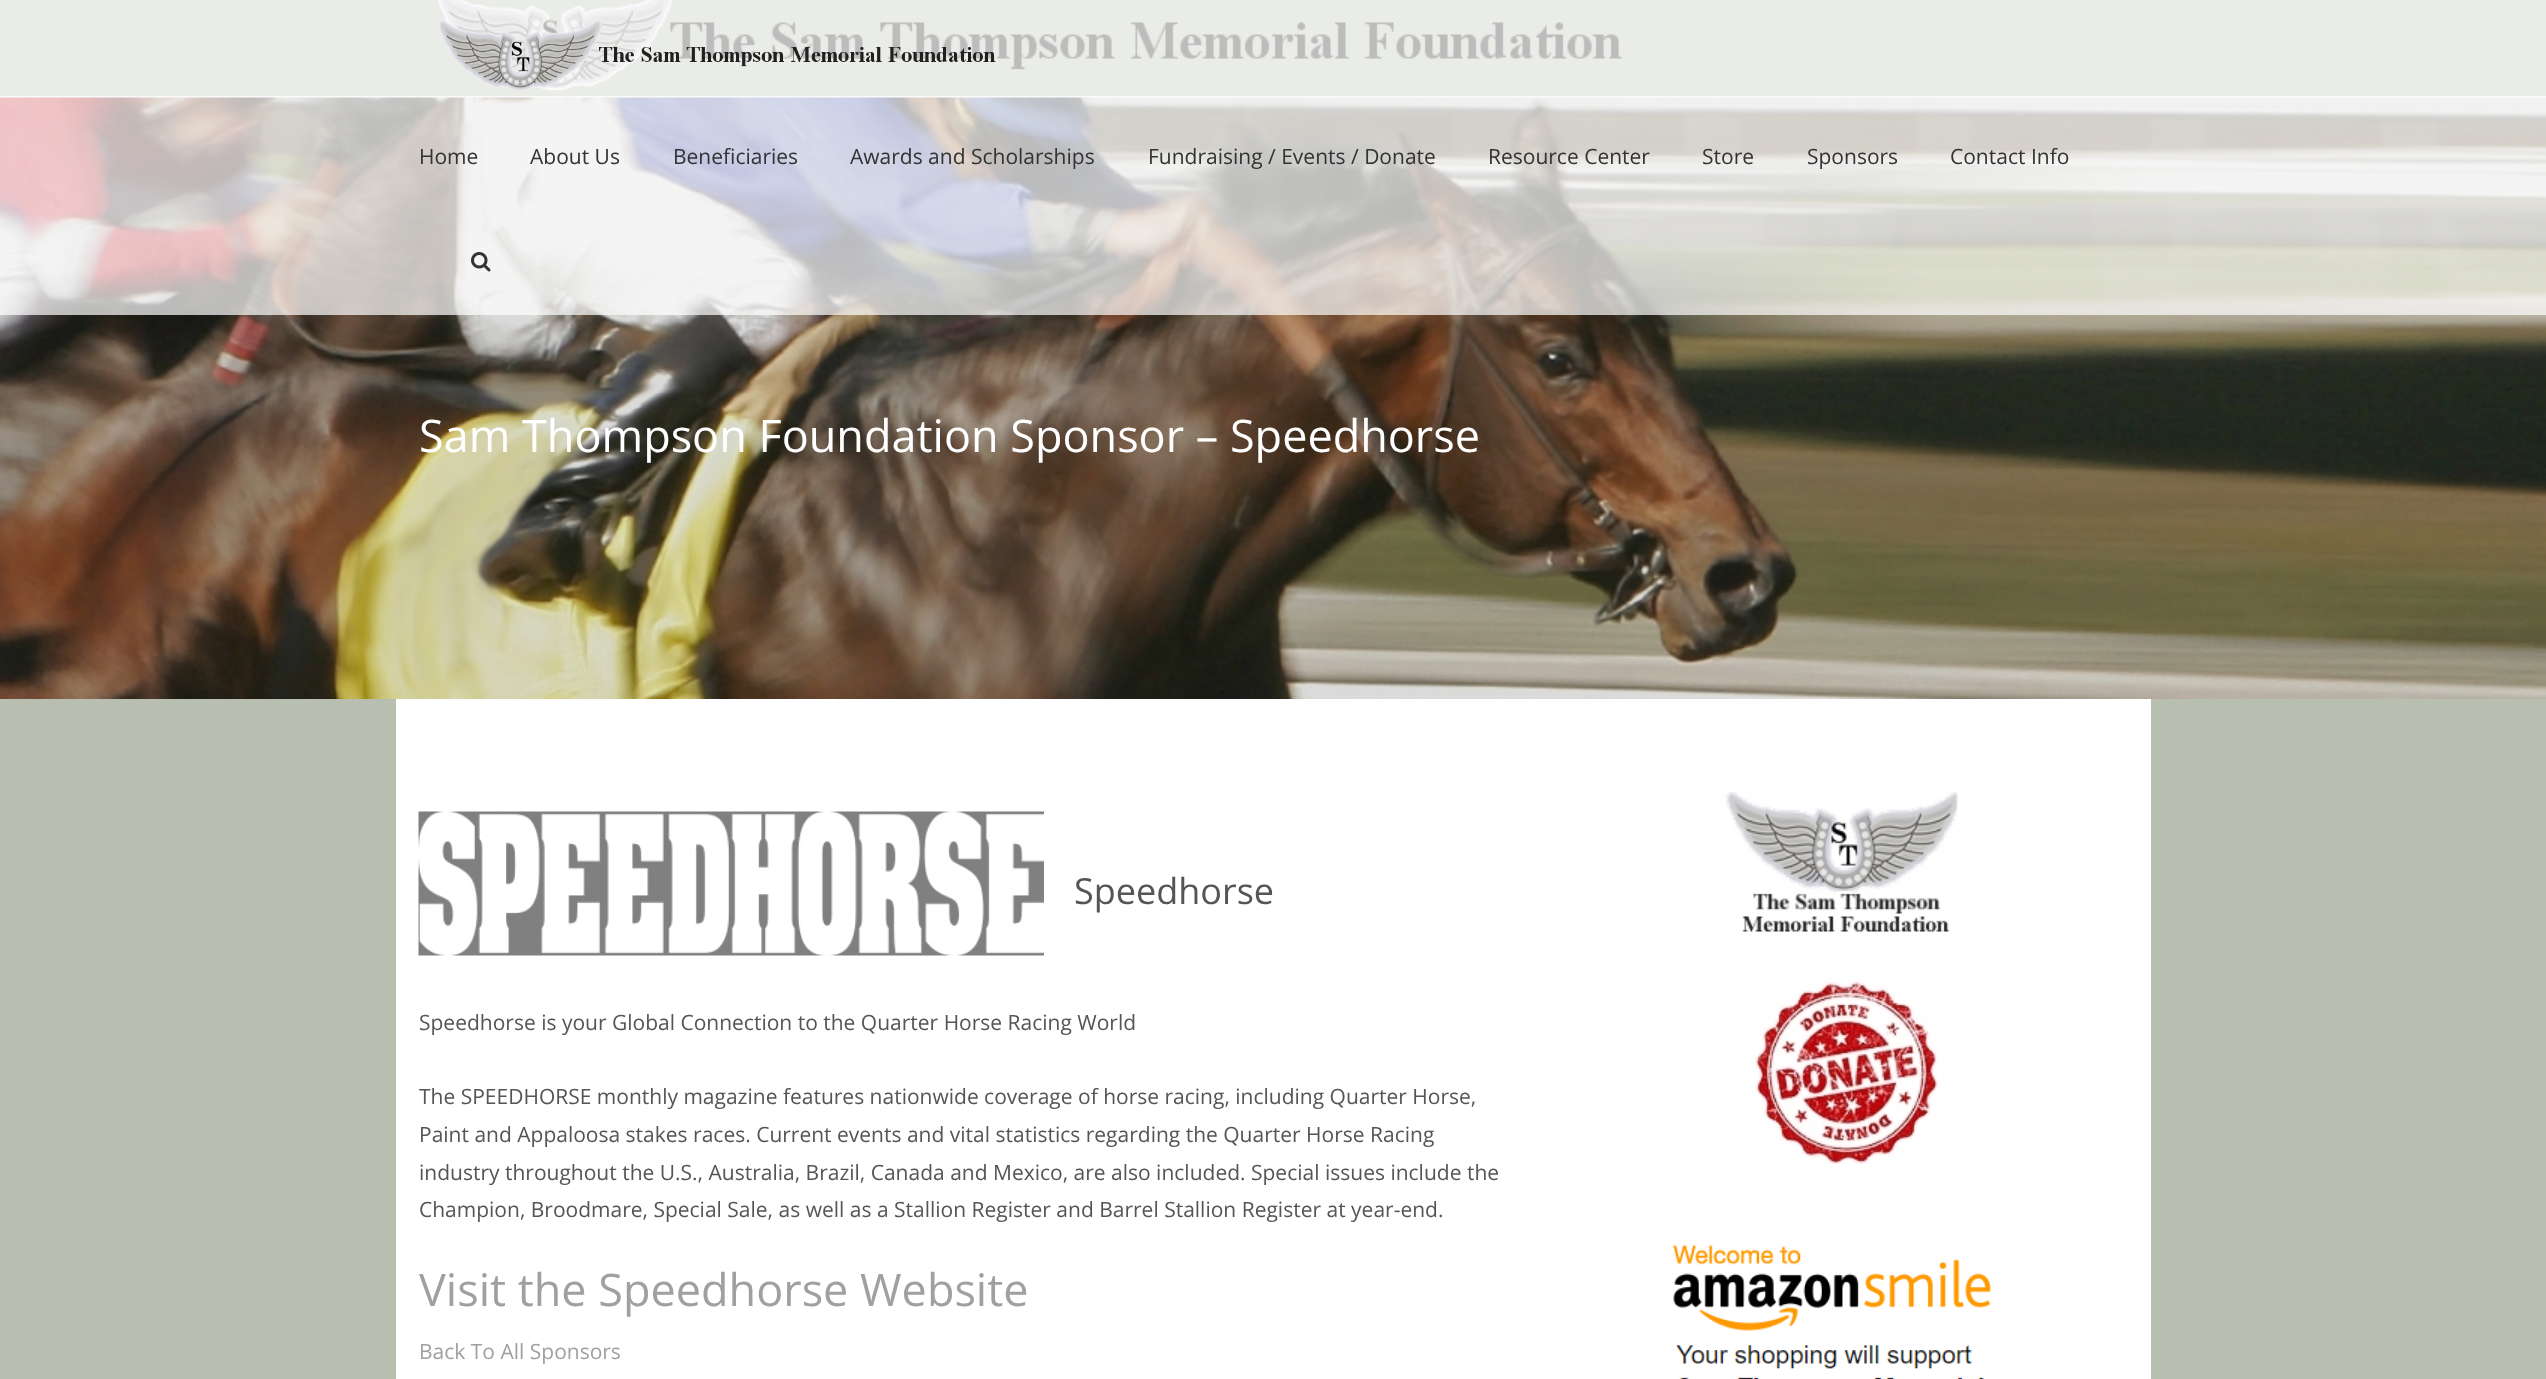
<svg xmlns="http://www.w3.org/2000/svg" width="2546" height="1379">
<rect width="100%" height="100%" fill="#b8bfb1"/>
<image x="437" y="0" width="1185" height="91" href="media/1.png"/>
<rect y="96" width="2546" height="2" fill="#eee"/>
<image x="0" y="97" width="2546" height="602" href="media/4.png"/>
<rect width="2546" height="315" fill="#ffffffb3"/>
<image x="438" y="20" width="558" height="70" href="media/2.png"/>
<text x="419" y="164" style="font-family:Open Sans;font-size:21px;fill:#333">Home</text>
<text x="530" y="164" style="font-family:Open Sans;font-size:21px;fill:#333">About Us</text>
<text x="673" y="164" style="font-family:Open Sans;font-size:21px;fill:#333">Beneficiaries</text>
<text x="850" y="164" style="font-family:Open Sans;font-size:21px;fill:#333">Awards and Scholarships</text>
<text x="1148" y="164" style="font-family:Open Sans;font-size:21px;fill:#333">Fundraising / Events / Donate</text>
<text x="1488" y="164" style="font-family:Open Sans;font-size:21px;fill:#333">Resource Center</text>
<text x="1702" y="164" style="font-family:Open Sans;font-size:21px;fill:#333">Store</text>
<text x="1807" y="164" style="font-family:Open Sans;font-size:21px;fill:#333">Sponsors</text>
<text x="1950" y="164" style="font-family:Open Sans;font-size:21px;fill:#333">Contact Info</text>
<image x="471" y="252" width="20" height="20" href="media/3.png"/>
<text x="419" y="452" style="font-family:Open Sans;font-size:45px;fill:#fff">Sam Thompson Foundation Sponsor – Speedhorse</text>
<rect x="396" y="699" width="1755" height="680" fill="#fff"/>
<image x="418" y="811" width="626" height="145" href="media/5.png"/>
<text x="1074" y="904" style="font-family:Open Sans;font-size:36px;fill:#555">Speedhorse</text>
<text x="419" y="1030" style="font-family:Open Sans;font-size:21px;fill:#555">Speedhorse is your Global Connection to the Quarter Horse Racing World</text>
<text x="419" y="1104" style="font-family:Open Sans;font-size:21px;fill:#555">The SPEEDHORSE monthly magazine features nationwide coverage of horse racing, including Quarter Horse,</text>
<text x="419" y="1142" style="font-family:Open Sans;font-size:21px;fill:#555">Paint and Appaloosa stakes races. Current events and vital statistics regarding the Quarter Horse Racing</text>
<text x="419" y="1180" style="font-family:Open Sans;font-size:21px;fill:#555">industry throughout the U.S., Australia, Brazil, Canada and Mexico, are also included. Special issues include the</text>
<text x="419" y="1217" style="font-family:Open Sans;font-size:21px;fill:#555">Champion, Broodmare, Special Sale, as well as a Stallion Register and Barrel Stallion Register at year-end.</text>
<text x="419" y="1306" style="font-family:Open Sans;font-size:45px;fill:#a0a0a0">Visit the Speedhorse Website</text>
<text x="419" y="1359" style="font-family:Open Sans;font-size:21px;fill:#a0a0a0">Back To All Sponsors</text>
<image x="1725" y="792" width="233" height="372" href="media/6.png"/>
<image x="1673" y="1244" width="318" height="135" href="media/7.png"/>
</svg>
